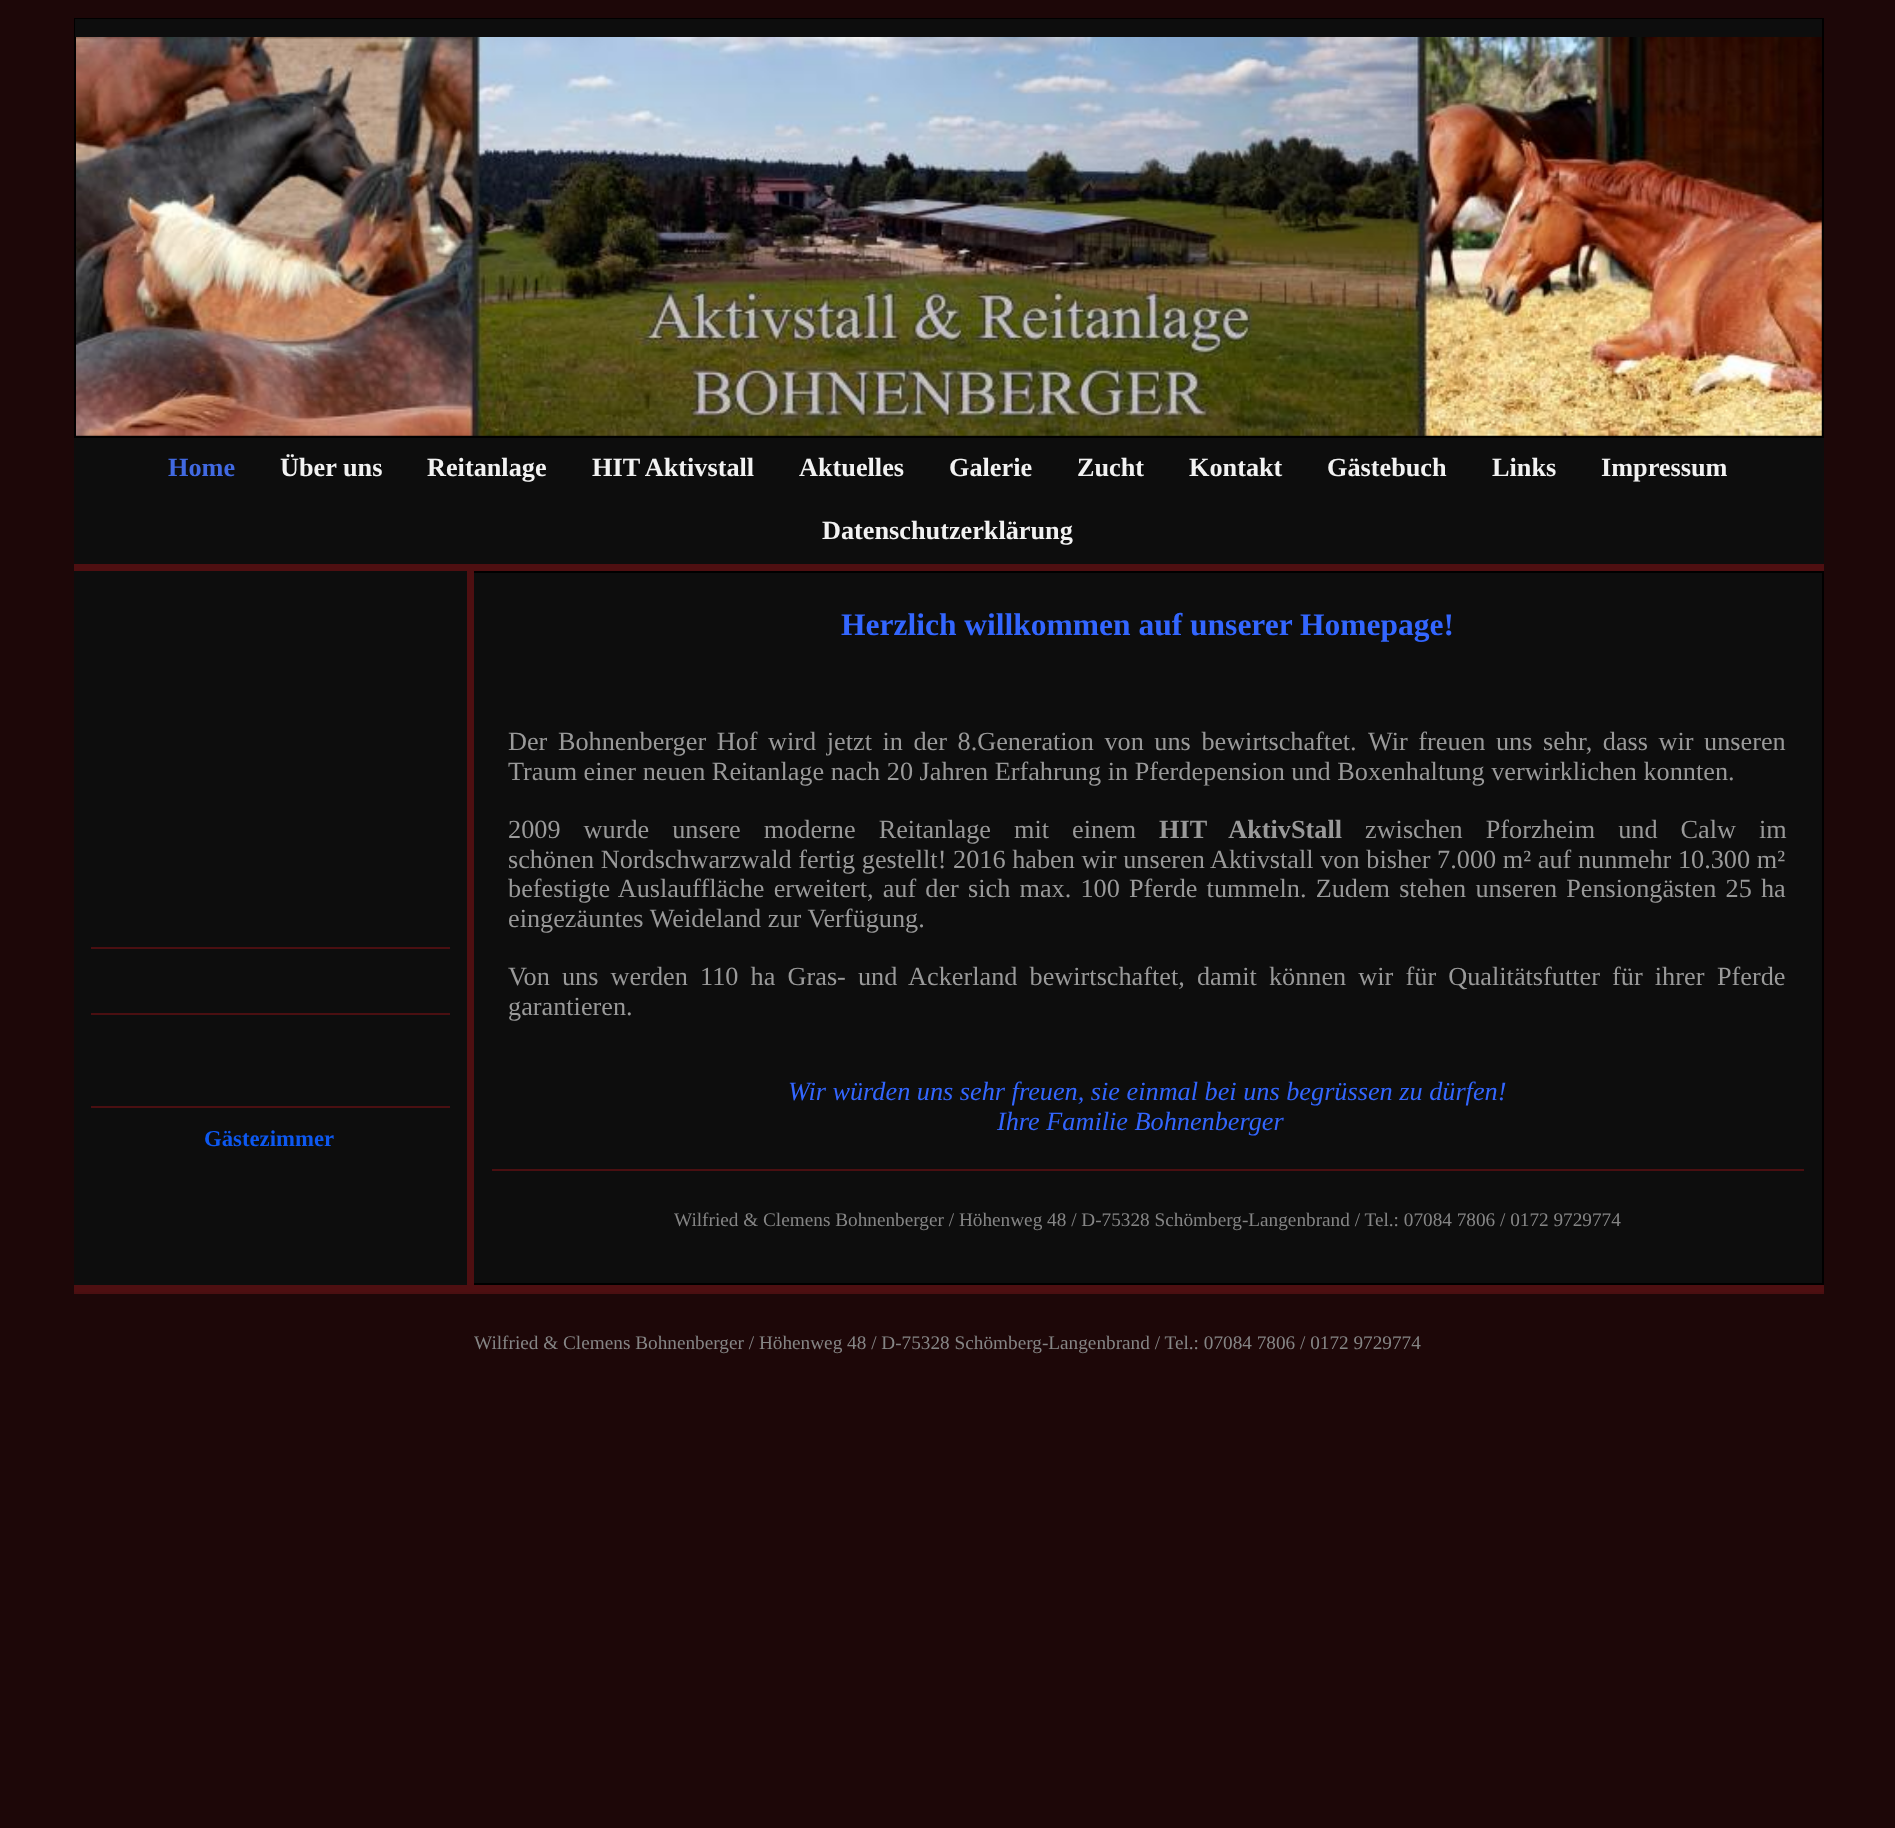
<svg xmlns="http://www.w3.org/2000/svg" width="1895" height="1828">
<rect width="100%" height="100%" fill="#1d0708"/>
<rect x="74" y="564" width="1750" height="728" fill="#4e0f11"/>
<rect x="76" y="37" width="1746" height="399" fill="#0d0d0d"/>
<image x="76" y="37" width="1746" height="399" href="media/1.png"/>
<rect x="75" y="19" width="1748" height="418" fill="none" stroke="#000" stroke-width="2"/>
<rect x="75" y="19" width="1747" height="18" fill="#0d0d0d"/>
<rect x="74" y="438" width="1750" height="126" fill="#0d0d0d"/>
<text x="168" y="476" style="font-family:Liberation Serif;font-size:26.25px;font-weight:bold;fill:#4169e1">Home</text>
<text x="280" y="476" style="font-family:Liberation Serif;font-size:26.25px;font-weight:bold;fill:#f2f2f2">Über uns</text>
<text x="427" y="476" style="font-family:Liberation Serif;font-size:26.25px;font-weight:bold;fill:#f2f2f2">Reitanlage</text>
<text x="592" y="476" style="font-family:Liberation Serif;font-size:26.25px;font-weight:bold;fill:#f2f2f2">HIT Aktivstall</text>
<text x="799" y="476" style="font-family:Liberation Serif;font-size:26.25px;font-weight:bold;fill:#f2f2f2">Aktuelles</text>
<text x="949" y="476" style="font-family:Liberation Serif;font-size:26.25px;font-weight:bold;fill:#f2f2f2">Galerie</text>
<text x="1077" y="476" style="font-family:Liberation Serif;font-size:26.25px;font-weight:bold;fill:#f2f2f2">Zucht</text>
<text x="1189" y="476" style="font-family:Liberation Serif;font-size:26.25px;font-weight:bold;fill:#f2f2f2">Kontakt</text>
<text x="1327" y="476" style="font-family:Liberation Serif;font-size:26.25px;font-weight:bold;fill:#f2f2f2">Gästebuch</text>
<text x="1492" y="476" style="font-family:Liberation Serif;font-size:26.25px;font-weight:bold;fill:#f2f2f2">Links</text>
<text x="1601" y="476" style="font-family:Liberation Serif;font-size:26.25px;font-weight:bold;fill:#f2f2f2">Impressum</text>
<text x="822" y="539" style="font-family:Liberation Serif;font-size:26.25px;font-weight:bold;fill:#f2f2f2">Datenschutzerklärung</text>
<rect x="74" y="571" width="393" height="714" fill="#0d0d0d"/>
<rect x="91" y="947" width="359" height="2" fill="#4a0f11"/>
<rect x="91" y="1013" width="359" height="2" fill="#4a0f11"/>
<rect x="91" y="1106" width="359" height="2" fill="#4a0f11"/>
<text x="204" y="1146" style="font-family:Liberation Serif;font-size:22.75px;font-weight:bold;fill:#0d58f0">Gästezimmer</text>
<rect x="474" y="573" width="1348" height="710" fill="#0d0d0d"/>
<rect x="474" y="571" width="1350" height="2" fill="#000"/>
<rect x="1822" y="571" width="2" height="714" fill="#000"/>
<rect x="474" y="1283" width="1350" height="2" fill="#000"/>
<text x="841" y="635" style="font-family:Liberation Serif;font-size:31.5px;font-weight:bold;fill:#36f">Herzlich willkommen auf unserer Homepage!</text>
<text x="508" y="750" word-spacing="4" style="font-family:Liberation Serif;font-size:26.25px;fill:#999">Der Bohnenberger Hof wird jetzt in der 8.Generation von uns bewirtschaftet.</text>
<text x="1368" y="750" word-spacing="4" style="font-family:Liberation Serif;font-size:26.25px;fill:#999">Wir freuen uns sehr, dass wir unseren</text>
<text x="508" y="780" style="font-family:Liberation Serif;font-size:26.25px;fill:#999">Traum einer neuen Reitanlage nach 20 Jahren Erfahrung in Pferdepension und Boxenhaltung verwirklichen konnten.</text>
<text x="508" y="838" word-spacing="16.5" style="font-family:Liberation Serif;font-size:26.25px;fill:#999">2009 wurde unsere moderne Reitanlage mit einem</text>
<text x="1159" y="838" word-spacing="16.5" style="font-family:Liberation Serif;font-size:26.25px;font-weight:bold;fill:#999">HIT AktivStall</text>
<text x="1365" y="838" word-spacing="16.5" style="font-family:Liberation Serif;font-size:26.25px;fill:#999">zwischen Pforzheim und Calw im</text>
<text x="508" y="868" word-spacing="0.1" style="font-family:Liberation Serif;font-size:26.25px;fill:#999">schönen Nordschwarzwald fertig gestellt! 2016 haben wir unseren Aktivstall von bisher 7.000 m² auf nunmehr 10.300 m²</text>
<text x="508" y="897" word-spacing="2.6" style="font-family:Liberation Serif;font-size:26.25px;fill:#999">befestigte Auslauffläche erweitert, auf der sich max. 100 Pferde tummeln. Zudem stehen unseren Pensiongästen 25 ha</text>
<text x="508" y="927" style="font-family:Liberation Serif;font-size:26.25px;fill:#999">eingezäuntes Weideland zur Verfügung.</text>
<text x="508" y="985" word-spacing="5.6" style="font-family:Liberation Serif;font-size:26.25px;fill:#999">Von uns werden 110 ha Gras- und Ackerland bewirtschaftet, damit können wir für Qualitätsfutter für ihrer</text>
<text x="1717" y="985" style="font-family:Liberation Serif;font-size:26.25px;fill:#999">Pferde</text>
<text x="508" y="1015" style="font-family:Liberation Serif;font-size:26.25px;fill:#999">garantieren.</text>
<text x="788" y="1100" style="font-family:Liberation Serif;font-size:26.25px;font-style:italic;fill:#36f">Wir würden uns sehr freuen, sie einmal bei uns begrüssen zu dürfen!</text>
<text x="997" y="1130" style="font-family:Liberation Serif;font-size:26.25px;font-style:italic;fill:#36f">Ihre Familie Bohnenberger</text>
<rect x="492" y="1169" width="1312" height="2" fill="#4a0f11"/>
<text x="674" y="1226" style="font-family:Liberation Serif;font-size:19.25px;fill:#858585">Wilfried &amp; Clemens Bohnenberger / Höhenweg 48 / D-75328 Schömberg-Langenbrand / Tel.: 07084 7806 / 0172 9729774</text>
<rect x="74" y="1292" width="1750" height="2" fill="#4a0f11"/>
<text x="474" y="1349" style="font-family:Liberation Serif;font-size:19.25px;fill:#858585">Wilfried &amp; Clemens Bohnenberger / Höhenweg 48 / D-75328 Schömberg-Langenbrand / Tel.: 07084 7806 / 0172 9729774</text>
</svg>
